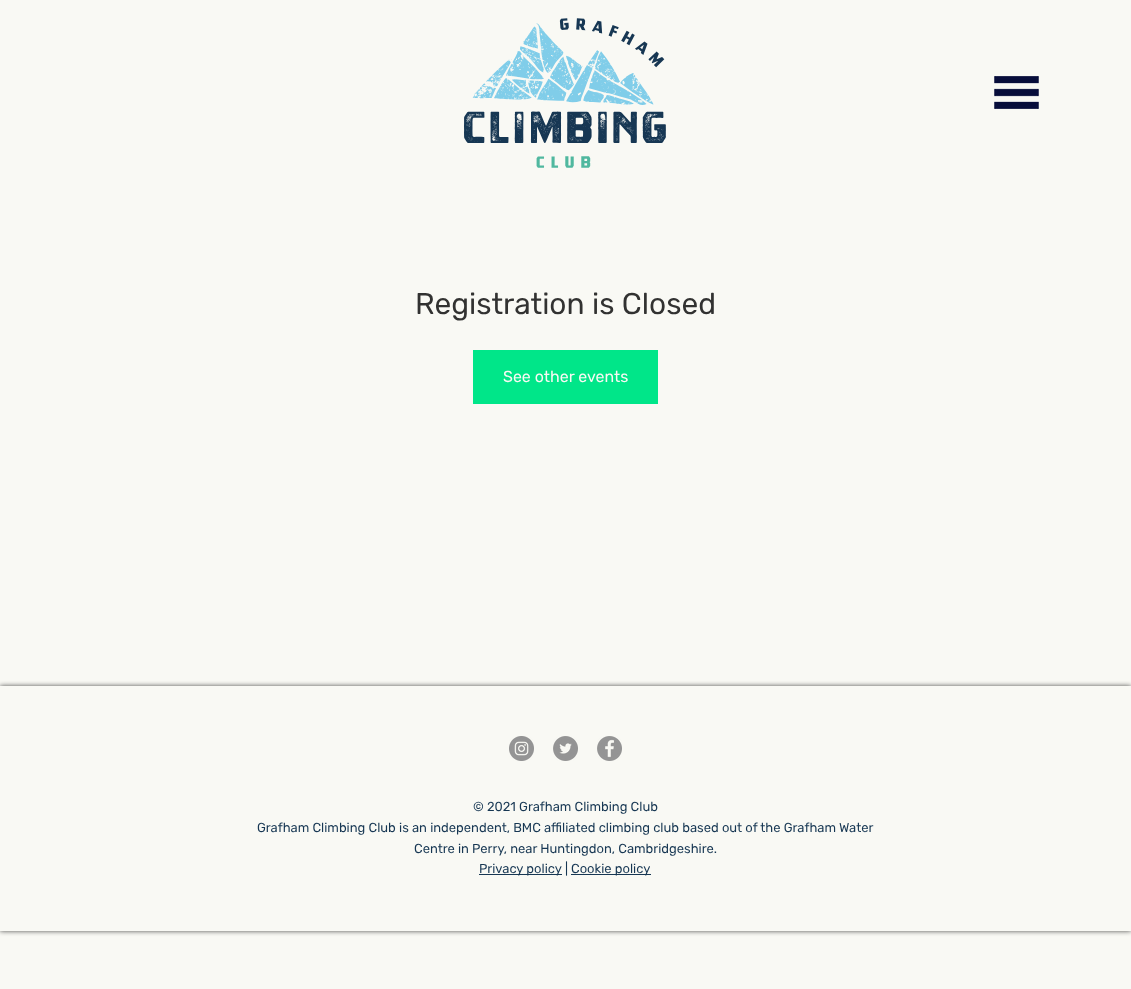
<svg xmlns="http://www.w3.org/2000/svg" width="1131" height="989">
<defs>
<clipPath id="clip1"><path d="M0 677h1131v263h-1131zm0 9h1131v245h-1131z" clip-rule="evenodd"/></clipPath>
</defs>
<rect width="100%" height="100%" fill="#f9f9f4"/>
<image x="464" y="18" width="202" height="150" href="media/1.png"/>
<image x="994" y="76" width="45" height="33" href="media/2.png"/>
<text x="415" y="314" style="font-family:Rubik;font-size:30px;fill:#323231">Registration is Closed</text>
<rect x="473" y="350" width="185" height="54" fill="#00e689"/>
<text x="503" y="382" style="font-family:Rubik;font-size:16px;fill:#f9f9f4">See other events</text>
<g clip-path="url(#clip1)">
<rect y="686" width="1131" height="245" fill="#000000b3" filter="blur(2.5px)"/>
</g>
<image x="509" y="736" width="25" height="25" href="media/3.png"/>
<image x="553" y="736" width="25" height="25" href="media/4.png"/>
<image x="597" y="736" width="25" height="25" href="media/5.png"/>
<text x="473" y="811" style="font-family:Rubik;font-size:13px;fill:#173753">© 2021 Grafham Climbing Club</text>
<text x="257" y="832" style="font-family:Rubik;font-size:13px;fill:#173753">Grafham Climbing Club is an independent, BMC affiliated climbing club based out of the Grafham Water</text>
<text x="414" y="853" style="font-family:Rubik;font-size:13px;fill:#173753">Centre in Perry, near Huntingdon, Cambridgeshire.</text>
<rect x="479" y="874" width="83" height="1" fill="#173753"/>
<text x="479" y="873" style="font-family:Rubik;font-size:13px;fill:#173753">Privacy policy</text>
<text x="565" y="873" style="font-family:Rubik;font-size:13px;fill:#173753">|</text>
<rect x="571" y="874" width="80" height="1" fill="#173753"/>
<text x="571" y="873" style="font-family:Rubik;font-size:13px;fill:#173753">Cookie policy</text>
</svg>
